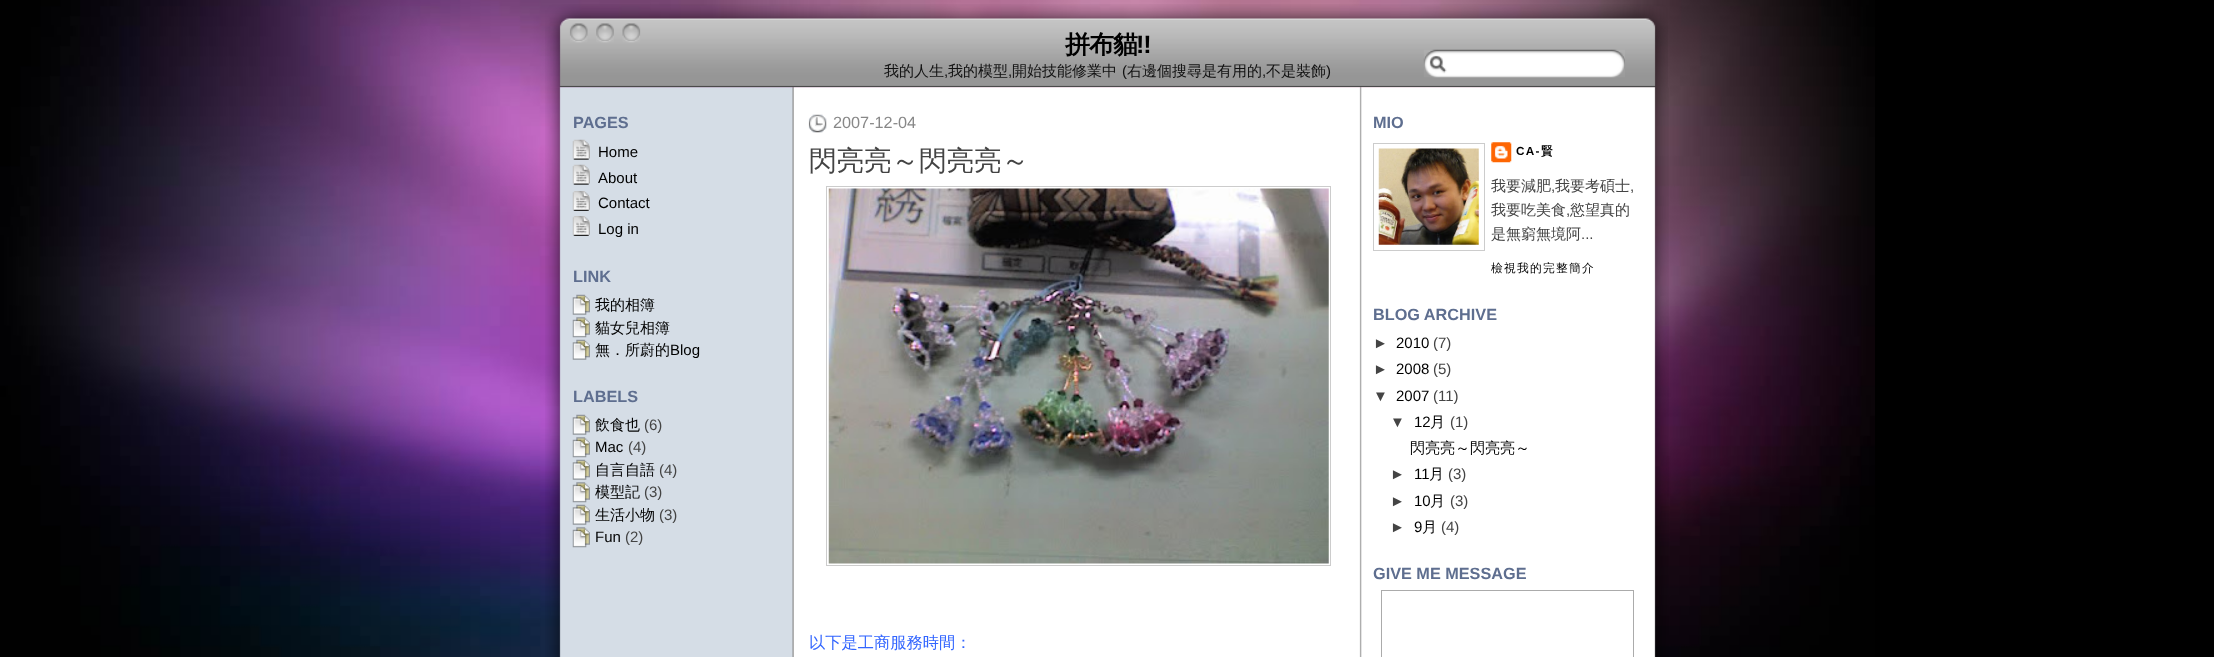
<svg xmlns="http://www.w3.org/2000/svg" width="2214" height="657">
<rect width="100%" height="100%" fill="#000"/>
<image x="0" y="0" width="1875" height="657" href="media/1.png"/>
<image x="545" y="4" width="1123" height="84" href="media/2.png"/>
<text x="1065" y="53" style="font-family:WenQuanYi Zen Hei;font-size:25px;font-weight:bold;letter-spacing:-1px;fill:#000">拼布貓</text>
<text x="1136" y="53" style="font-family:Liberation Sans;font-size:25px;font-weight:bold;letter-spacing:-1px;fill:#000">!!</text>
<text x="884" y="76" style="font-family:WenQuanYi Zen Hei;font-size:15px;font-weight:500;fill:#111">我的人生</text>
<text x="944" y="76" style="font-family:Liberation Sans;font-size:15px;fill:#111">,</text>
<text x="948" y="76" style="font-family:WenQuanYi Zen Hei;font-size:15px;font-weight:500;fill:#111">我的模型</text>
<text x="1008" y="76" style="font-family:Liberation Sans;font-size:15px;fill:#111">,</text>
<text x="1012" y="76" style="font-family:WenQuanYi Zen Hei;font-size:15px;font-weight:500;fill:#111">開始技能修業中</text>
<text x="1122" y="76" style="font-family:Liberation Sans;font-size:15px;fill:#111">(</text>
<text x="1127" y="76" style="font-family:WenQuanYi Zen Hei;font-size:15px;font-weight:500;fill:#111">右邊個搜尋是有用的</text>
<text x="1262" y="76" style="font-family:Liberation Sans;font-size:15px;fill:#111">,</text>
<text x="1266" y="76" style="font-family:WenQuanYi Zen Hei;font-size:15px;font-weight:500;fill:#111">不是裝飾</text>
<text x="1326" y="76" style="font-family:Liberation Sans;font-size:15px;fill:#111">)</text>
<image x="1423" y="49" width="202" height="29" href="media/3.png"/>
<image x="545" y="87" width="1124" height="570" href="media/4.png"/>
<text x="573" y="128" style="font-family:Liberation Sans;font-size:16.25px;font-weight:bold;fill:#5e6e8f">PAGES</text>
<image x="572" y="139" width="18" height="21" href="media/5.png"/>
<text x="598" y="157" style="font-family:Liberation Sans;font-size:15px;fill:#000">Home</text>
<image x="572" y="164" width="18" height="21" href="media/5.png"/>
<text x="598" y="183" style="font-family:Liberation Sans;font-size:15px;fill:#000">About</text>
<image x="572" y="191" width="18" height="20" href="media/6.png"/>
<text x="598" y="208" style="font-family:Liberation Sans;font-size:15px;fill:#000">Contact</text>
<image x="572" y="216" width="18" height="20" href="media/6.png"/>
<text x="598" y="234" style="font-family:Liberation Sans;font-size:15px;fill:#000">Log in</text>
<text x="573" y="282" style="font-family:Liberation Sans;font-size:16.25px;font-weight:bold;fill:#5e6e8f">LINK</text>
<image x="572" y="294" width="18" height="21" href="media/7.png"/>
<text x="595" y="310" style="font-family:WenQuanYi Zen Hei;font-size:15px;font-weight:500;fill:#000">我的相簿</text>
<image x="572" y="317" width="18" height="21" href="media/8.png"/>
<text x="595" y="333" style="font-family:WenQuanYi Zen Hei;font-size:15px;font-weight:500;fill:#000">貓女兒相簿</text>
<image x="572" y="339" width="18" height="21" href="media/7.png"/>
<text x="595" y="355" style="font-family:WenQuanYi Zen Hei;font-size:15px;font-weight:500;fill:#000">無．所蔚的</text>
<text x="670" y="355" style="font-family:Liberation Sans;font-size:15px;fill:#000">Blog</text>
<text x="573" y="402" style="font-family:Liberation Sans;font-size:16.25px;font-weight:bold;fill:#5e6e8f">LABELS</text>
<image x="572" y="414" width="18" height="21" href="media/7.png"/>
<text x="595" y="430" style="font-family:WenQuanYi Zen Hei;font-size:15px;font-weight:500;fill:#000">飲食也</text>
<text x="644" y="430" style="font-family:Liberation Sans;font-size:15px;fill:#444">(6)</text>
<image x="572" y="437" width="18" height="21" href="media/8.png"/>
<text x="595" y="452" style="font-family:Liberation Sans;font-size:15px;fill:#000">Mac</text>
<text x="628" y="452" style="font-family:Liberation Sans;font-size:15px;fill:#444">(4)</text>
<image x="572" y="459" width="18" height="21" href="media/7.png"/>
<text x="595" y="475" style="font-family:WenQuanYi Zen Hei;font-size:15px;font-weight:500;fill:#000">自言自語</text>
<text x="659" y="475" style="font-family:Liberation Sans;font-size:15px;fill:#444">(4)</text>
<image x="572" y="482" width="18" height="21" href="media/8.png"/>
<text x="595" y="497" style="font-family:WenQuanYi Zen Hei;font-size:15px;font-weight:500;fill:#000">模型記</text>
<text x="644" y="497" style="font-family:Liberation Sans;font-size:15px;fill:#444">(3)</text>
<image x="572" y="504" width="18" height="21" href="media/7.png"/>
<text x="595" y="520" style="font-family:WenQuanYi Zen Hei;font-size:15px;font-weight:500;fill:#000">生活小物</text>
<text x="659" y="520" style="font-family:Liberation Sans;font-size:15px;fill:#444">(3)</text>
<image x="572" y="527" width="18" height="21" href="media/8.png"/>
<text x="595" y="542" style="font-family:Liberation Sans;font-size:15px;fill:#000">Fun</text>
<text x="625" y="542" style="font-family:Liberation Sans;font-size:15px;fill:#444">(2)</text>
<image x="808" y="114" width="19" height="19" href="media/9.png"/>
<text x="833" y="128" style="font-family:Liberation Sans;font-size:16.25px;fill:#888">2007-12-04</text>
<text x="809" y="170" style="font-family:WenQuanYi Zen Hei;font-size:27.5px;font-weight:500;fill:#444">閃亮亮～閃亮亮～</text>
<rect x="826.5" y="186.5" width="504" height="379" fill="none" stroke="#ccc"/>
<image x="828" y="188" width="501" height="376" href="media/10.png"/>
<text x="809" y="648" style="font-family:WenQuanYi Zen Hei;font-size:16.25px;font-weight:500;fill:#36f">以下是工商服務時間：</text>
<text x="1373" y="128" style="font-family:Liberation Sans;font-size:16.25px;font-weight:bold;fill:#5e6e8f">MIO</text>
<rect x="1373.5" y="143.5" width="111" height="107" fill="none" stroke="#ccc"/>
<image x="1378" y="148" width="101" height="97" href="media/11.png"/>
<image x="1491" y="142" width="21" height="21" href="media/12.png"/>
<text x="1516" y="155" style="font-family:Liberation Sans;font-size:11.75px;font-weight:bold;letter-spacing:1.25px;fill:#000">CA-</text>
<text x="1541" y="155" style="font-family:WenQuanYi Zen Hei;font-size:11.75px;font-weight:bold;letter-spacing:1.25px;fill:#000">賢</text>
<text x="1491" y="191" style="font-family:WenQuanYi Zen Hei;font-size:15px;font-weight:500;fill:#444">我要減肥</text>
<text x="1551" y="191" style="font-family:Liberation Sans;font-size:15px;fill:#444">,</text>
<text x="1555" y="191" style="font-family:WenQuanYi Zen Hei;font-size:15px;font-weight:500;fill:#444">我要考碩士</text>
<text x="1630" y="191" style="font-family:Liberation Sans;font-size:15px;fill:#444">,</text>
<text x="1491" y="215" style="font-family:WenQuanYi Zen Hei;font-size:15px;font-weight:500;fill:#444">我要吃美食</text>
<text x="1566" y="215" style="font-family:Liberation Sans;font-size:15px;fill:#444">,</text>
<text x="1570" y="215" style="font-family:WenQuanYi Zen Hei;font-size:15px;font-weight:500;fill:#444">慾望真的</text>
<text x="1491" y="239" style="font-family:WenQuanYi Zen Hei;font-size:15px;font-weight:500;fill:#444">是無窮無境阿</text>
<text x="1581" y="239" style="font-family:Liberation Sans;font-size:15px;fill:#444">...</text>
<text x="1491" y="272" style="font-family:WenQuanYi Zen Hei;font-size:11.75px;font-weight:500;letter-spacing:1.25px;fill:#000">檢視我的完整簡介</text>
<text x="1373" y="320" style="font-family:Liberation Sans;font-size:16.25px;font-weight:bold;fill:#5e6e8f">BLOG ARCHIVE</text>
<text x="1373" y="348" style="font-family:Liberation Sans;font-size:15px;fill:#444">►</text>
<text x="1396" y="348" style="font-family:Liberation Sans;font-size:15px;fill:#000">2010</text>
<text x="1433" y="348" style="font-family:Liberation Sans;font-size:15px;fill:#444">(7)</text>
<text x="1373" y="374" style="font-family:Liberation Sans;font-size:15px;fill:#444">►</text>
<text x="1396" y="374" style="font-family:Liberation Sans;font-size:15px;fill:#000">2008</text>
<text x="1433" y="374" style="font-family:Liberation Sans;font-size:15px;fill:#444">(5)</text>
<text x="1373" y="401" style="font-family:Liberation Sans;font-size:15px;fill:#444">▼</text>
<text x="1396" y="401" style="font-family:Liberation Sans;font-size:15px;fill:#000">2007</text>
<text x="1433" y="401" style="font-family:Liberation Sans;font-size:15px;fill:#444">(11)</text>
<text x="1390" y="427" style="font-family:Liberation Sans;font-size:15px;fill:#444">▼</text>
<text x="1414" y="427" style="font-family:Liberation Sans;font-size:15px;fill:#000">12</text>
<text x="1430" y="427" style="font-family:WenQuanYi Zen Hei;font-size:15px;font-weight:500;fill:#000">月</text>
<text x="1450" y="427" style="font-family:Liberation Sans;font-size:15px;fill:#444">(1)</text>
<text x="1410" y="453" style="font-family:WenQuanYi Zen Hei;font-size:15px;font-weight:500;fill:#000">閃亮亮～閃亮亮～</text>
<text x="1390" y="479" style="font-family:Liberation Sans;font-size:15px;fill:#444">►</text>
<text x="1414" y="479" style="font-family:Liberation Sans;font-size:15px;fill:#000">11</text>
<text x="1429" y="479" style="font-family:WenQuanYi Zen Hei;font-size:15px;font-weight:500;fill:#000">月</text>
<text x="1448" y="479" style="font-family:Liberation Sans;font-size:15px;fill:#444">(3)</text>
<text x="1390" y="506" style="font-family:Liberation Sans;font-size:15px;fill:#444">►</text>
<text x="1414" y="506" style="font-family:Liberation Sans;font-size:15px;fill:#000">10</text>
<text x="1430" y="506" style="font-family:WenQuanYi Zen Hei;font-size:15px;font-weight:500;fill:#000">月</text>
<text x="1450" y="506" style="font-family:Liberation Sans;font-size:15px;fill:#444">(3)</text>
<text x="1390" y="532" style="font-family:Liberation Sans;font-size:15px;fill:#444">►</text>
<text x="1414" y="532" style="font-family:Liberation Sans;font-size:15px;fill:#000">9</text>
<text x="1422" y="532" style="font-family:WenQuanYi Zen Hei;font-size:15px;font-weight:500;fill:#000">月</text>
<text x="1441" y="532" style="font-family:Liberation Sans;font-size:15px;fill:#444">(4)</text>
<text x="1373" y="579" style="font-family:Liberation Sans;font-size:16.25px;font-weight:bold;fill:#5e6e8f">GIVE ME MESSAGE</text>
<rect x="1381.5" y="590.5" width="252" height="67" fill="none" stroke="#ababab"/>
</svg>
